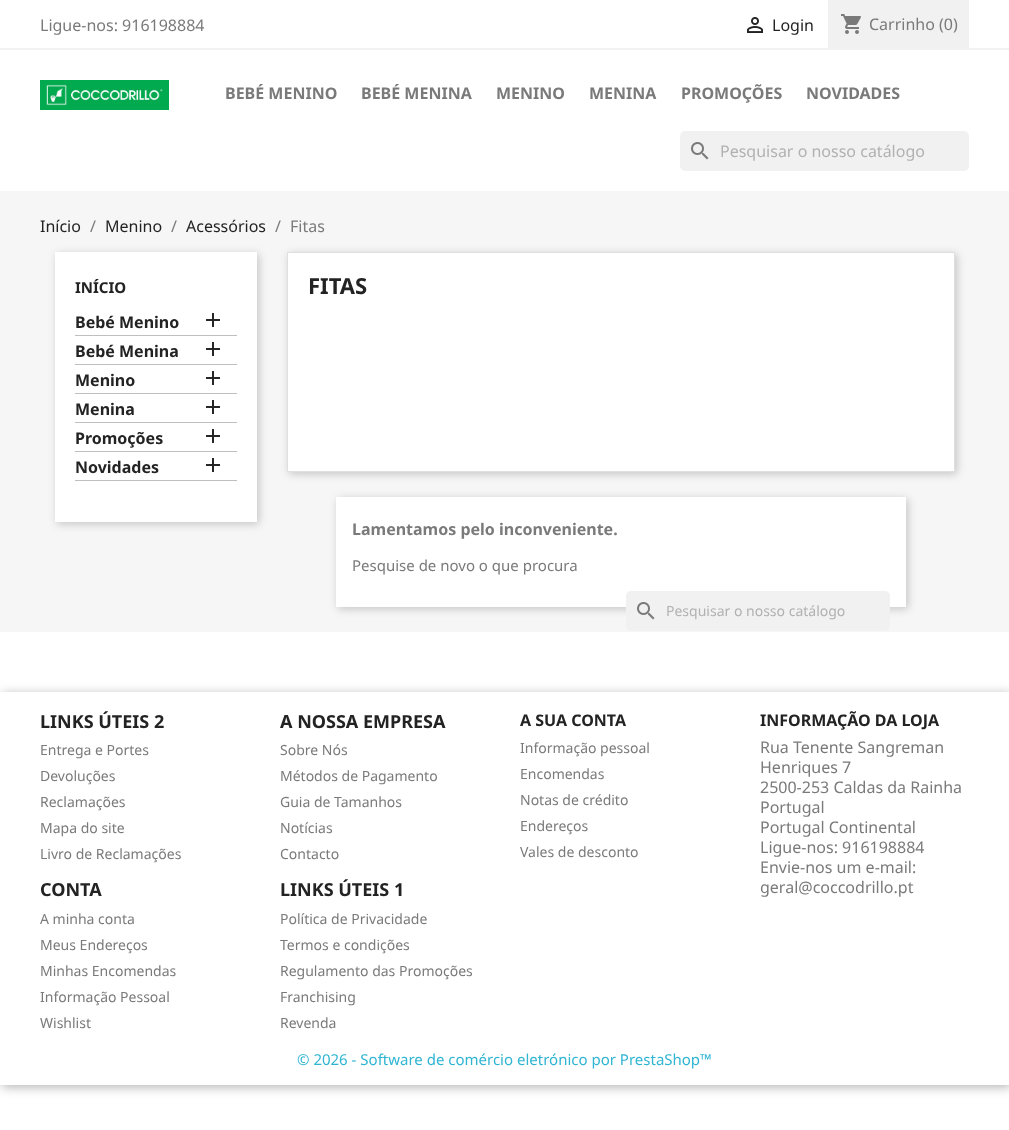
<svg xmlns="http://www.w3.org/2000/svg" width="1009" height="1130">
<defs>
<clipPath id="clip1"><path d="M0 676h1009v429h-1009zm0 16h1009v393h-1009z" clip-rule="evenodd"/></clipPath>
</defs>
<rect width="100%" height="100%" fill="#fff"/>
<rect y="48" width="1009" height="2" fill="#f1f1f1"/>
<text x="40" y="31" style="font-family:Noto Sans;font-size:16px;fill:#7a7a7a">Ligue-nos: 916198884</text>
<image x="747" y="17" width="16" height="16" href="media/1.png"/>
<text x="772" y="31" style="font-family:Noto Sans;font-size:16px;fill:#232323">Login</text>
<rect x="828" width="141" height="48" fill="#f1f1f1"/>
<image x="841" y="14" width="20" height="20" href="media/2.png"/>
<text x="869" y="30" style="font-family:Noto Sans;font-size:16px;fill:#7a7a7a">Carrinho (0)</text>
<image x="40" y="80" width="129" height="30" href="media/3.png"/>
<text x="225" y="99" style="font-family:Noto Sans;font-size:16px;font-weight:bold;fill:#7a7a7a">BEBÉ MENINO</text>
<text x="361" y="99" style="font-family:Noto Sans;font-size:16px;font-weight:bold;fill:#7a7a7a">BEBÉ MENINA</text>
<text x="496" y="99" style="font-family:Noto Sans;font-size:16px;font-weight:bold;fill:#7a7a7a">MENINO</text>
<text x="589" y="99" style="font-family:Noto Sans;font-size:16px;font-weight:bold;fill:#7a7a7a">MENINA</text>
<text x="681" y="99" style="font-family:Noto Sans;font-size:16px;font-weight:bold;fill:#7a7a7a">PROMOÇÕES</text>
<text x="806" y="99" style="font-family:Noto Sans;font-size:16px;font-weight:bold;fill:#7a7a7a">NOVIDADES</text>
<rect x="680" y="131" width="289" height="40" rx="5" fill="#f1f1f1"/>
<image x="691" y="142" width="18" height="18" href="media/4.png"/>
<text x="720" y="157" style="font-family:Noto Sans;font-size:16px;fill:#b1b1b1">Pesquisar o nosso catálogo</text>
<rect y="191" width="1009" height="441" fill="#f6f6f6"/>
<text x="40" y="232" style="font-family:Noto Sans;font-size:16px;fill:#232323">Início</text>
<text x="90" y="232" style="font-family:Noto Sans;font-size:16px;fill:#7a7a7a">/</text>
<text x="105" y="232" style="font-family:Noto Sans;font-size:16px;fill:#232323">Menino</text>
<text x="171" y="232" style="font-family:Noto Sans;font-size:16px;fill:#7a7a7a">/</text>
<text x="186" y="232" style="font-family:Noto Sans;font-size:16px;fill:#232323">Acessórios</text>
<text x="275" y="232" style="font-family:Noto Sans;font-size:16px;fill:#7a7a7a">/</text>
<text x="290" y="232" style="font-family:Noto Sans;font-size:16px;fill:#7a7a7a">Fitas</text>
<rect x="57" y="254" width="202" height="270" fill="#00000033" filter="blur(4px)"/>
<rect x="55" y="252" width="202" height="270" fill="#fff"/>
<text x="75" y="293" style="font-family:Noto Sans;font-size:15px;font-weight:bold;fill:#232323">INÍCIO</text>
<rect x="75" y="335" width="162" height="1" fill="#bfbfbf"/>
<text x="75" y="328" style="font-family:Noto Sans;font-size:16px;font-weight:bold;fill:#232323">Bebé Menino</text>
<image x="206" y="313" width="14" height="14" href="media/5.png"/>
<rect x="75" y="364" width="162" height="1" fill="#bfbfbf"/>
<text x="75" y="357" style="font-family:Noto Sans;font-size:16px;font-weight:bold;fill:#232323">Bebé Menina</text>
<image x="206" y="342" width="14" height="14" href="media/5.png"/>
<rect x="75" y="393" width="162" height="1" fill="#bfbfbf"/>
<text x="75" y="386" style="font-family:Noto Sans;font-size:16px;font-weight:bold;fill:#232323">Menino</text>
<image x="206" y="371" width="14" height="14" href="media/5.png"/>
<rect x="75" y="422" width="162" height="1" fill="#bfbfbf"/>
<text x="75" y="415" style="font-family:Noto Sans;font-size:16px;font-weight:bold;fill:#232323">Menina</text>
<image x="206" y="400" width="14" height="14" href="media/5.png"/>
<rect x="75" y="451" width="162" height="1" fill="#bfbfbf"/>
<text x="75" y="444" style="font-family:Noto Sans;font-size:16px;font-weight:bold;fill:#232323">Promoções</text>
<image x="206" y="429" width="14" height="14" href="media/5.png"/>
<rect x="75" y="480" width="162" height="1" fill="#bfbfbf"/>
<text x="75" y="473" style="font-family:Noto Sans;font-size:16px;font-weight:bold;fill:#232323">Novidades</text>
<image x="206" y="458" width="14" height="14" href="media/5.png"/>
<rect x="289" y="254" width="668" height="220" fill="#00000033" filter="blur(4px)"/>
<rect x="287.5" y="252.5" width="667" height="219" fill="#fff" stroke="#dfdfdf"/>
<text x="308" y="294" style="font-family:Noto Sans;font-size:22px;font-weight:bold;fill:#232323">FITAS</text>
<rect x="338" y="499" width="570" height="110" fill="#00000033" filter="blur(4px)"/>
<rect x="336" y="497" width="570" height="110" fill="#fff"/>
<text x="352" y="535" style="font-family:Noto Sans;font-size:16px;font-weight:bold;fill:#7a7a7a">Lamentamos pelo inconveniente.</text>
<text x="352" y="571" style="font-family:Noto Sans;font-size:15px;fill:#7a7a7a">Pesquise de novo o que procura</text>
<rect x="626" y="591" width="264" height="40" rx="5" fill="#f1f1f1"/>
<image x="637" y="602" width="18" height="18" href="media/4.png"/>
<text x="666" y="616" style="font-family:Noto Sans;font-size:14px;fill:#b1b1b1">Pesquisar o nosso catálogo</text>
<g clip-path="url(#clip1)">
<rect x="2" y="694" width="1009" height="393" fill="#0000004d" filter="blur(5.5px)"/>
</g>
<text x="40" y="728" style="font-family:Noto Sans;font-size:18px;font-weight:bold;fill:#232323">LINKS ÚTEIS 2</text>
<text x="40" y="755" style="font-family:Noto Sans;font-size:14px;fill:#7a7a7a">Entrega e Portes</text>
<text x="40" y="781" style="font-family:Noto Sans;font-size:14px;fill:#7a7a7a">Devoluções</text>
<text x="40" y="807" style="font-family:Noto Sans;font-size:14px;fill:#7a7a7a">Reclamações</text>
<text x="40" y="833" style="font-family:Noto Sans;font-size:14px;fill:#7a7a7a">Mapa do site</text>
<text x="40" y="859" style="font-family:Noto Sans;font-size:14px;fill:#7a7a7a">Livro de Reclamações</text>
<text x="280" y="728" style="font-family:Noto Sans;font-size:18px;font-weight:bold;fill:#232323">A NOSSA EMPRESA</text>
<text x="280" y="755" style="font-family:Noto Sans;font-size:14px;fill:#7a7a7a">Sobre Nós</text>
<text x="280" y="781" style="font-family:Noto Sans;font-size:14px;fill:#7a7a7a">Métodos de Pagamento</text>
<text x="280" y="807" style="font-family:Noto Sans;font-size:14px;fill:#7a7a7a">Guia de Tamanhos</text>
<text x="280" y="833" style="font-family:Noto Sans;font-size:14px;fill:#7a7a7a">Notícias</text>
<text x="280" y="859" style="font-family:Noto Sans;font-size:14px;fill:#7a7a7a">Contacto</text>
<text x="40" y="896" style="font-family:Noto Sans;font-size:18px;font-weight:bold;fill:#232323">CONTA</text>
<text x="40" y="924" style="font-family:Noto Sans;font-size:14px;fill:#7a7a7a">A minha conta</text>
<text x="40" y="950" style="font-family:Noto Sans;font-size:14px;fill:#7a7a7a">Meus Endereços</text>
<text x="40" y="976" style="font-family:Noto Sans;font-size:14px;fill:#7a7a7a">Minhas Encomendas</text>
<text x="40" y="1002" style="font-family:Noto Sans;font-size:14px;fill:#7a7a7a">Informação Pessoal</text>
<text x="40" y="1028" style="font-family:Noto Sans;font-size:14px;fill:#7a7a7a">Wishlist</text>
<text x="280" y="896" style="font-family:Noto Sans;font-size:18px;font-weight:bold;fill:#232323">LINKS ÚTEIS 1</text>
<text x="280" y="924" style="font-family:Noto Sans;font-size:14px;fill:#7a7a7a">Política de Privacidade</text>
<text x="280" y="950" style="font-family:Noto Sans;font-size:14px;fill:#7a7a7a">Termos e condições</text>
<text x="280" y="976" style="font-family:Noto Sans;font-size:14px;fill:#7a7a7a">Regulamento das Promoções</text>
<text x="280" y="1002" style="font-family:Noto Sans;font-size:14px;fill:#7a7a7a">Franchising</text>
<text x="280" y="1028" style="font-family:Noto Sans;font-size:14px;fill:#7a7a7a">Revenda</text>
<text x="520" y="726" style="font-family:Noto Sans;font-size:16px;font-weight:bold;fill:#232323">A SUA CONTA</text>
<text x="520" y="753" style="font-family:Noto Sans;font-size:14px;fill:#7a7a7a">Informação pessoal</text>
<text x="520" y="779" style="font-family:Noto Sans;font-size:14px;fill:#7a7a7a">Encomendas</text>
<text x="520" y="805" style="font-family:Noto Sans;font-size:14px;fill:#7a7a7a">Notas de crédito</text>
<text x="520" y="831" style="font-family:Noto Sans;font-size:14px;fill:#7a7a7a">Endereços</text>
<text x="520" y="857" style="font-family:Noto Sans;font-size:14px;fill:#7a7a7a">Vales de desconto</text>
<text x="760" y="726" style="font-family:Noto Sans;font-size:16px;font-weight:bold;fill:#232323">INFORMAÇÃO DA LOJA</text>
<text x="760" y="753" style="font-family:Noto Sans;font-size:16px;fill:#7a7a7a">Rua Tenente Sangreman</text>
<text x="760" y="773" style="font-family:Noto Sans;font-size:16px;fill:#7a7a7a">Henriques 7</text>
<text x="760" y="793" style="font-family:Noto Sans;font-size:16px;fill:#7a7a7a">2500-253 Caldas da Rainha</text>
<text x="760" y="813" style="font-family:Noto Sans;font-size:16px;fill:#7a7a7a">Portugal</text>
<text x="760" y="833" style="font-family:Noto Sans;font-size:16px;fill:#7a7a7a">Portugal Continental</text>
<text x="760" y="853" style="font-family:Noto Sans;font-size:16px;fill:#7a7a7a">Ligue-nos: 916198884</text>
<text x="760" y="873" style="font-family:Noto Sans;font-size:16px;fill:#7a7a7a">Envie-nos um e-mail:</text>
<text x="760" y="893" style="font-family:Noto Sans;font-size:16px;fill:#7a7a7a">geral@coccodrillo.pt</text>
<text x="297" y="1065" style="font-family:Noto Sans;font-size:15px;fill:#2fb5d2">© 2026 - Software de comércio eletrónico por PrestaShop™</text>
</svg>
